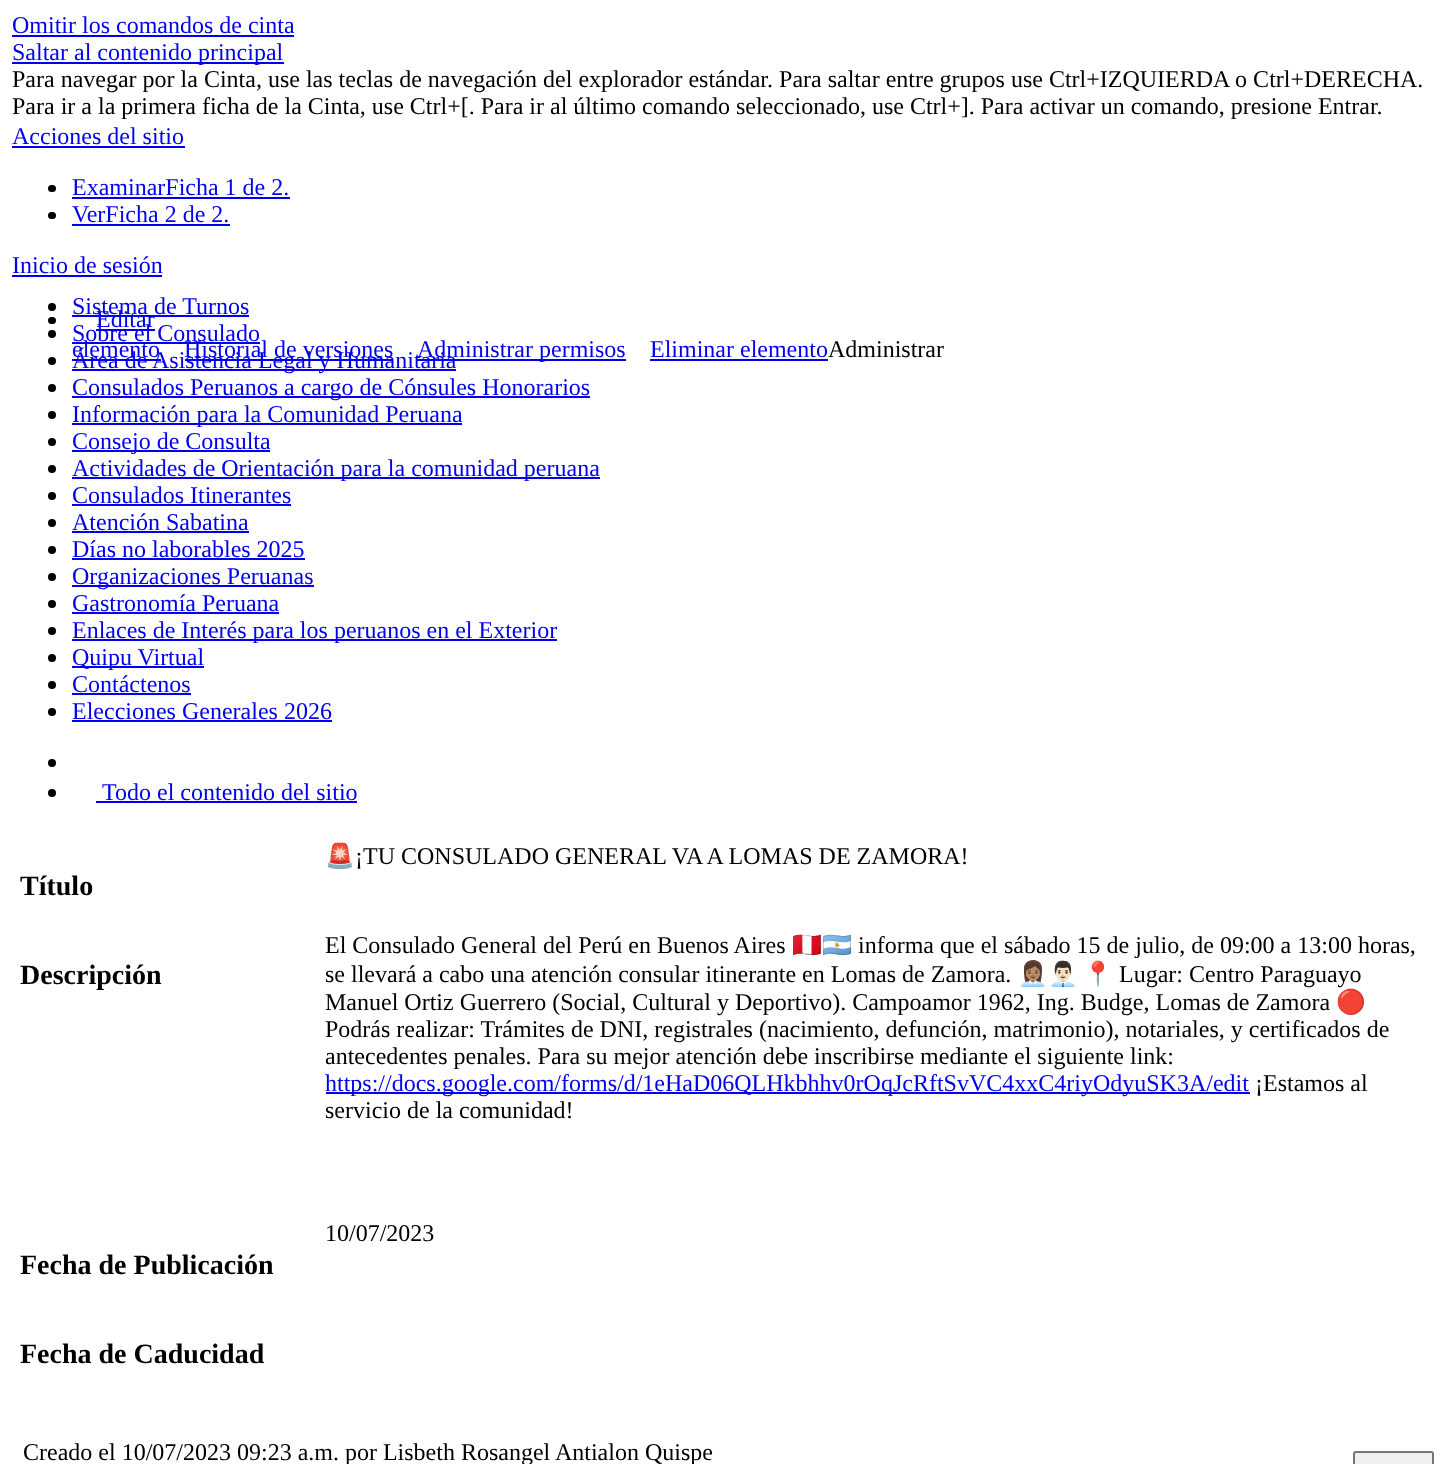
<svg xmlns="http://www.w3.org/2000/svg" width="1449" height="1464">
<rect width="100%" height="100%" fill="#fff"/>
<text x="12" y="33" style="font-family:Liberation Serif;font-size:24px;fill:#00e">Omitir los comandos de cinta</text>
<rect x="12" y="35" width="282" height="2" fill="#00e"/>
<rect x="12" y="62" width="272" height="2" fill="#00e"/>
<text x="12" y="60" style="font-family:Liberation Serif;font-size:24px;fill:#00e">Saltar al contenido principal</text>
<text x="12" y="87" style="font-family:Liberation Serif;font-size:24px;fill:#000">Para navegar por la Cinta, use las teclas de navegación del explorador estándar. Para saltar entre grupos use Ctrl+IZQUIERDA o Ctrl+DERECHA.</text>
<text x="12" y="114" style="font-family:Liberation Serif;font-size:24px;fill:#000">Para ir a la primera ficha de la Cinta, use Ctrl+[. Para ir al último comando seleccionado, use Ctrl+]. Para activar un comando, presione Entrar.</text>
<text x="12" y="144" style="font-family:Liberation Serif;font-size:24px;fill:#00e">Acciones del sitio</text>
<rect x="12" y="146" width="173" height="2" fill="#00e"/>
<rect x="48" y="185" width="8" height="7" rx="3.5" fill="#000"/>
<text x="72" y="195" style="font-family:Liberation Serif;font-size:24px;fill:#00e">ExaminarFicha 1 de 2.</text>
<rect x="72" y="197" width="218" height="2" fill="#00e"/>
<rect x="48" y="212" width="8" height="7" rx="3.5" fill="#000"/>
<text x="72" y="222" style="font-family:Liberation Serif;font-size:24px;fill:#00e">VerFicha 2 de 2.</text>
<rect x="72" y="224" width="158" height="2" fill="#00e"/>
<text x="12" y="273" style="font-family:Liberation Serif;font-size:24px;fill:#00e">Inicio de sesión</text>
<rect x="12" y="275" width="150" height="2" fill="#00e"/>
<rect x="48" y="317" width="8" height="7" rx="3.5" fill="#000"/>
<text x="96" y="327" style="font-family:Liberation Serif;font-size:24px;fill:#00e">Editar</text>
<rect x="96" y="329" width="59" height="2" fill="#00e"/>
<text x="72" y="357" style="font-family:Liberation Serif;font-size:24px;fill:#00e">elemento</text>
<rect x="72" y="359" width="89" height="2" fill="#00e"/>
<text x="184" y="357" style="font-family:Liberation Serif;font-size:24px;fill:#00e">Historial de versiones</text>
<rect x="185" y="359" width="208" height="2" fill="#00e"/>
<rect x="417" y="359" width="209" height="2" fill="#00e"/>
<text x="417" y="357" style="font-family:Liberation Serif;font-size:24px;fill:#00e">Administrar permisos</text>
<text x="650" y="357" style="font-family:Liberation Serif;font-size:24px;fill:#00e">Eliminar elemento</text>
<rect x="650" y="359" width="178" height="2" fill="#00e"/>
<text x="828" y="357" style="font-family:Liberation Serif;font-size:24px;fill:#000">Administrar</text>
<circle cx="52" cy="307" r="4" fill="#000"/>
<text x="72" y="314" style="font-family:Liberation Serif;font-size:24px;fill:#00e">Sistema de Turnos</text>
<rect x="72" y="315" width="177" height="2" fill="#00e"/>
<circle cx="52" cy="334" r="4" fill="#000"/>
<text x="72" y="341" style="font-family:Liberation Serif;font-size:24px;fill:#00e">Sobre el Consulado</text>
<rect x="72" y="342" width="188" height="2" fill="#00e"/>
<circle cx="52" cy="361" r="4" fill="#000"/>
<rect x="72" y="369" width="384" height="2" fill="#00e"/>
<text x="72" y="368" style="font-family:Liberation Serif;font-size:24px;fill:#00e">Área de Asistencia Legal y Humanitaria</text>
<circle cx="52" cy="388" r="4" fill="#000"/>
<rect x="72" y="396" width="518" height="2" fill="#00e"/>
<text x="72" y="395" style="font-family:Liberation Serif;font-size:24px;fill:#00e">Consulados Peruanos a cargo de Cónsules Honorarios</text>
<circle cx="52" cy="415" r="4" fill="#000"/>
<rect x="72" y="423" width="390" height="2" fill="#00e"/>
<text x="72" y="422" style="font-family:Liberation Serif;font-size:24px;fill:#00e">Información para la Comunidad Peruana</text>
<circle cx="52" cy="442" r="4" fill="#000"/>
<rect x="72" y="450" width="198" height="2" fill="#00e"/>
<text x="72" y="449" style="font-family:Liberation Serif;font-size:24px;fill:#00e">Consejo de Consulta</text>
<circle cx="52" cy="469" r="4" fill="#000"/>
<rect x="72" y="477" width="528" height="2" fill="#00e"/>
<text x="72" y="476" style="font-family:Liberation Serif;font-size:24px;fill:#00e">Actividades de Orientación para la comunidad peruana</text>
<circle cx="52" cy="496" r="4" fill="#000"/>
<text x="72" y="503" style="font-family:Liberation Serif;font-size:24px;fill:#00e">Consulados Itinerantes</text>
<rect x="72" y="504" width="219" height="2" fill="#00e"/>
<circle cx="52" cy="523" r="4" fill="#000"/>
<text x="72" y="530" style="font-family:Liberation Serif;font-size:24px;fill:#00e">Atención Sabatina</text>
<rect x="72" y="531" width="177" height="2" fill="#00e"/>
<circle cx="52" cy="550" r="4" fill="#000"/>
<text x="72" y="557" style="font-family:Liberation Serif;font-size:24px;fill:#00e">Días no laborables 2025</text>
<rect x="72" y="558" width="233" height="2" fill="#00e"/>
<circle cx="52" cy="577" r="4" fill="#000"/>
<rect x="72" y="585" width="242" height="2" fill="#00e"/>
<text x="72" y="584" style="font-family:Liberation Serif;font-size:24px;fill:#00e">Organizaciones Peruanas</text>
<circle cx="52" cy="604" r="4" fill="#000"/>
<text x="72" y="611" style="font-family:Liberation Serif;font-size:24px;fill:#00e">Gastronomía Peruana</text>
<rect x="72" y="612" width="207" height="2" fill="#00e"/>
<circle cx="52" cy="631" r="4" fill="#000"/>
<rect x="72" y="639" width="485" height="2" fill="#00e"/>
<text x="72" y="638" style="font-family:Liberation Serif;font-size:24px;fill:#00e">Enlaces de Interés para los peruanos en el Exterior</text>
<circle cx="52" cy="658" r="4" fill="#000"/>
<rect x="72" y="666" width="132" height="2" fill="#00e"/>
<text x="72" y="665" style="font-family:Liberation Serif;font-size:24px;fill:#00e">Quipu Virtual</text>
<circle cx="52" cy="685" r="4" fill="#000"/>
<text x="72" y="692" style="font-family:Liberation Serif;font-size:24px;fill:#00e">Contáctenos</text>
<rect x="72" y="693" width="119" height="2" fill="#00e"/>
<circle cx="52" cy="712" r="4" fill="#000"/>
<text x="72" y="719" style="font-family:Liberation Serif;font-size:24px;fill:#00e">Elecciones Generales 2026</text>
<rect x="72" y="720" width="260" height="2" fill="#00e"/>
<circle cx="52" cy="763" r="4" fill="#000"/>
<circle cx="52" cy="793" r="4" fill="#000"/>
<text x="102" y="800" style="font-family:Liberation Serif;font-size:24px;fill:#00e">Todo el contenido del sitio</text>
<rect x="96" y="801" width="261" height="2" fill="#00e"/>
<text x="325" y="864" style="font-family:Noto Color Emoji;font-size:24px;fill:#000">🚨</text>
<text x="355" y="864" style="font-family:Liberation Serif;font-size:24px;fill:#000">¡TU CONSULADO GENERAL VA A LOMAS DE ZAMORA!</text>
<text x="20" y="895" style="font-family:Liberation Serif;font-size:28px;font-weight:bold;fill:#000">Título</text>
<text x="20" y="984" style="font-family:Liberation Serif;font-size:28px;font-weight:bold;fill:#000">Descripción</text>
<text x="325" y="953" style="font-family:Liberation Serif;font-size:24px;fill:#000">El Consulado General del Perú en Buenos Aires</text>
<text x="792" y="953" style="font-family:Noto Color Emoji;font-size:24px;fill:#000">🇵🇪🇦🇷</text>
<text x="858" y="953" style="font-family:Liberation Serif;font-size:24px;fill:#000">informa que el sábado 15 de julio, de 09:00 a 13:00 horas,</text>
<text x="325" y="982" style="font-family:Liberation Serif;font-size:24px;fill:#000">se llevará a cabo una atención consular itinerante en Lomas de Zamora.</text>
<text x="1018" y="982" style="font-family:Noto Color Emoji;font-size:24px;fill:#000">👩🏽‍💼👨🏻‍💼</text>
<text x="1083" y="982" style="font-family:Noto Color Emoji;font-size:24px;fill:#000">📍</text>
<text x="1119" y="982" style="font-family:Liberation Serif;font-size:24px;fill:#000">Lugar: Centro Paraguayo</text>
<text x="325" y="1010" style="font-family:Liberation Serif;font-size:24px;fill:#000">Manuel Ortiz Guerrero (Social, Cultural y Deportivo). Campoamor 1962, Ing. Budge, Lomas de Zamora</text>
<text x="1336" y="1010" style="font-family:Noto Color Emoji;font-size:24px;fill:#000">🔴</text>
<text x="325" y="1037" style="font-family:Liberation Serif;font-size:24px;fill:#000">Podrás realizar: Trámites de DNI, registrales (nacimiento, defunción, matrimonio), notariales, y certificados de</text>
<text x="325" y="1064" style="font-family:Liberation Serif;font-size:24px;fill:#000">antecedentes penales. Para su mejor atención debe inscribirse mediante el siguiente link:</text>
<rect x="326" y="1092" width="924" height="2" fill="#00e"/>
<text x="325" y="1091" style="font-family:Liberation Serif;font-size:24px;fill:#00e">https://docs.google.com/forms/d/1eHaD06QLHkbhhv0rOqJcRftSvVC4xxC4riyOdyuSK3A/edit</text>
<text x="1255" y="1091" style="font-family:Liberation Serif;font-size:24px;fill:#000">¡Estamos al</text>
<text x="325" y="1118" style="font-family:Liberation Serif;font-size:24px;fill:#000">servicio de la comunidad!</text>
<text x="325" y="1241" style="font-family:Liberation Serif;font-size:24px;fill:#000">10/07/2023</text>
<text x="20" y="1274" style="font-family:Liberation Serif;font-size:28px;font-weight:bold;fill:#000">Fecha de Publicación</text>
<text x="20" y="1363" style="font-family:Liberation Serif;font-size:28px;font-weight:bold;fill:#000">Fecha de Caducidad</text>
<text x="23" y="1460" style="font-family:Liberation Serif;font-size:24px;fill:#000">Creado el 10/07/2023 09:23 a.m. por Lisbeth Rosangel Antialon Quispe</text>
<rect x="1354" y="1452" width="79" height="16" rx="2" fill="#efefef" stroke="#767676" stroke-width="2"/>
</svg>
